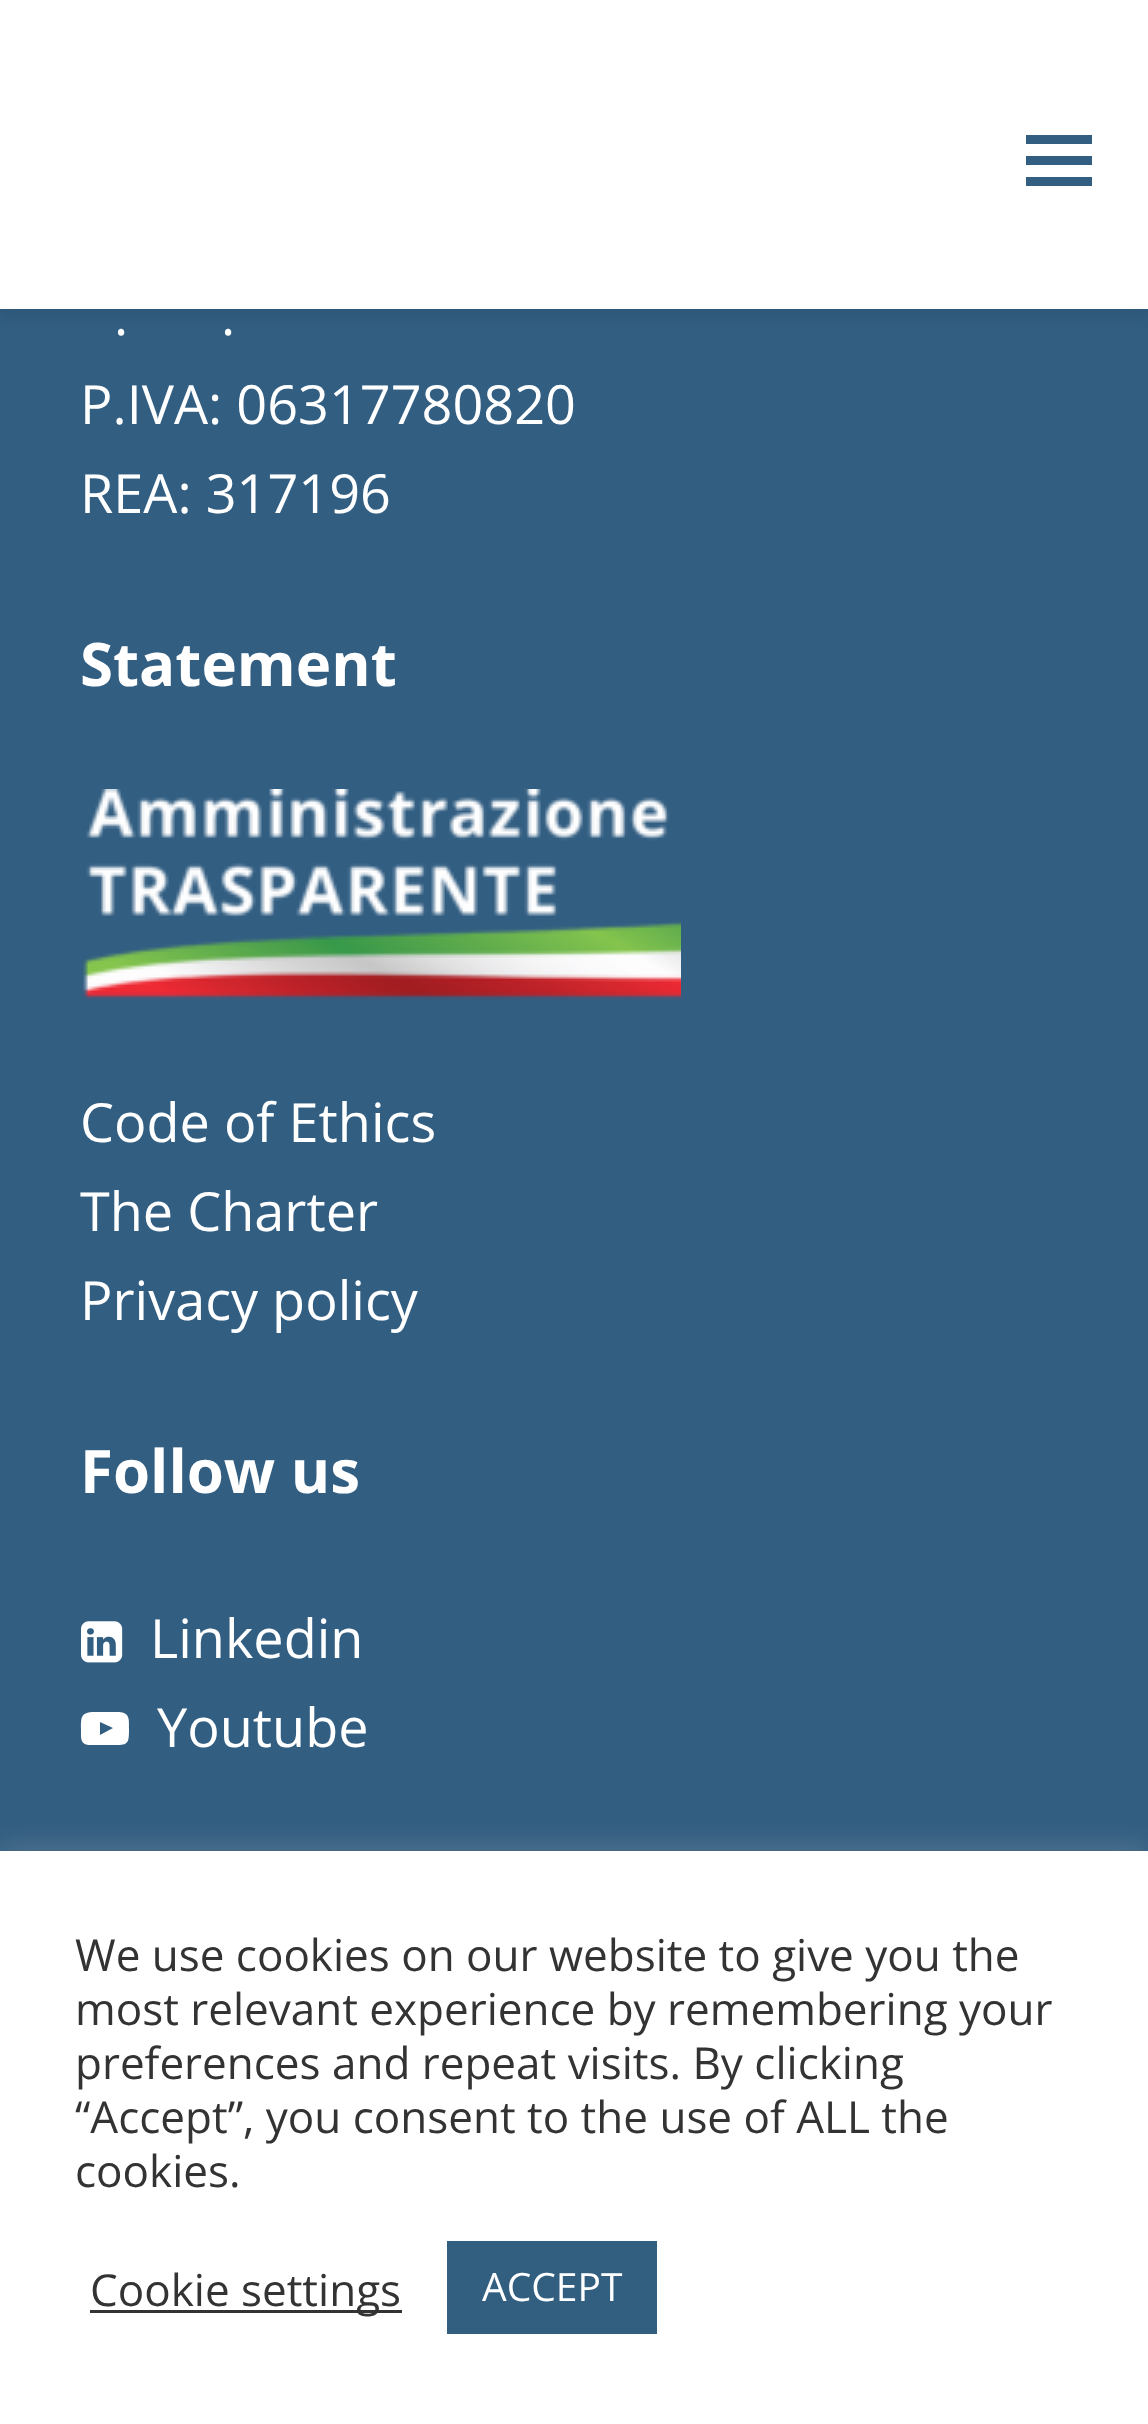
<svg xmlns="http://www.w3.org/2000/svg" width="1148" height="2424">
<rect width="100%" height="100%" fill="#325e82"/>
<rect y="6" width="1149" height="309" fill="#0000001a" filter="blur(7.5px)"/>
<rect width="1148" height="309" fill="#fff"/>
<rect x="1026" y="156" width="66" height="9" fill="#325e82"/>
<rect x="1026" y="135" width="66" height="9" fill="#325e82"/>
<rect x="1026" y="177" width="66" height="9" fill="#325e82"/>
<text x="114" y="335" style="font-family:Open Sans;font-size:54px;fill:#fff">.</text>
<text x="221" y="335" style="font-family:Open Sans;font-size:54px;fill:#fff">.</text>
<text x="80" y="424" style="font-family:Open Sans;font-size:54px;fill:#fff">P.IVA: 06317780820</text>
<text x="80" y="513" style="font-family:Open Sans;font-size:54px;fill:#fff">REA: 317196</text>
<text x="80" y="686" style="font-family:Open Sans;font-size:60px;font-weight:bold;fill:#fff">Statement</text>
<image x="83" y="789" width="598" height="211" href="media/1.png"/>
<text x="80" y="1142" style="font-family:Open Sans;font-size:54px;fill:#fff">Code of Ethics</text>
<text x="80" y="1231" style="font-family:Open Sans;font-size:54px;fill:#fff">The Charter</text>
<text x="80" y="1320" style="font-family:Open Sans;font-size:54px;fill:#fff">Privacy policy</text>
<text x="80" y="1493" style="font-family:Open Sans;font-size:60px;font-weight:bold;fill:#fff">Follow us</text>
<image x="81" y="1621" width="42" height="42" href="media/2.png"/>
<text x="150" y="1658" style="font-family:Open Sans;font-size:54px;fill:#fff">Linkedin</text>
<path d="M100 1735l13-7l-13-6zm5-23h14c11 1 10 7 10 17c0 12 0 16-11 16h-27c-11 0-10-6-10-16c0-12 0-16 11-17z" fill="#fff"/>
<text x="157" y="1747" style="font-family:Open Sans;font-size:54px;fill:#fff">Youtube</text>
<rect y="1848" width="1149" height="573" fill="#acabab4d" filter="blur(15px)"/>
<rect y="1851" width="1148" height="573" fill="#fff"/>
<text x="75" y="1971" style="font-family:Open Sans;font-size:44px;fill:#333">We use cookies on our website to give you the</text>
<text x="75" y="2025" style="font-family:Open Sans;font-size:44px;fill:#333">most relevant experience by remembering your</text>
<text x="75" y="2079" style="font-family:Open Sans;font-size:44px;fill:#333">preferences and repeat visits. By clicking</text>
<text x="75" y="2133" style="font-family:Open Sans;font-size:44px;fill:#333">“Accept”, you consent to the use of ALL the</text>
<text x="75" y="2187" style="font-family:Open Sans;font-size:44px;fill:#333">cookies.</text>
<rect x="90" y="2310" width="312" height="3" fill="#333"/>
<text x="90" y="2306" style="font-family:Open Sans;font-size:44px;fill:#333">Cookie settings</text>
<rect x="447" y="2241" width="210" height="93" fill="#325e80"/>
<text x="482" y="2301" style="font-family:Open Sans;font-size:39px;fill:#fff">ACCEPT</text>
</svg>
